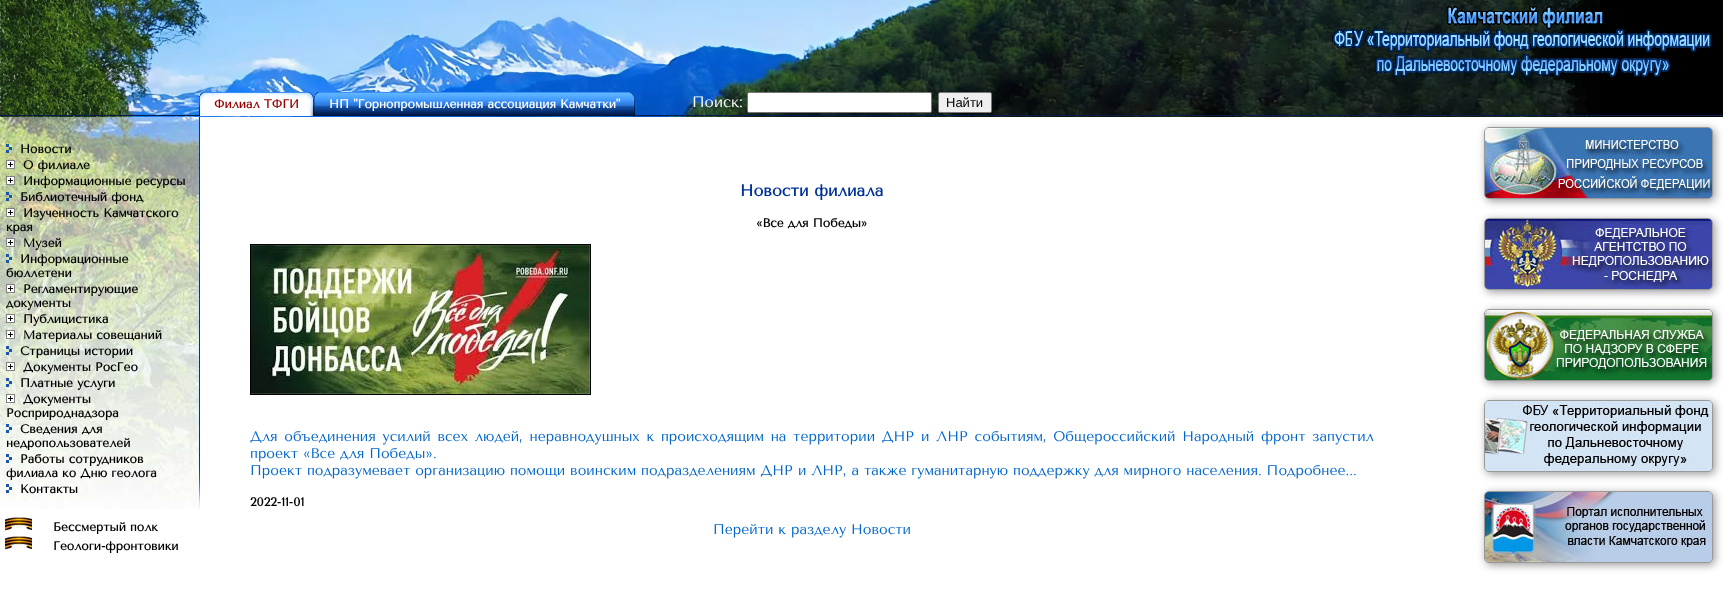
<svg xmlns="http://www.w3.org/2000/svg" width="1723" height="601">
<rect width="100%" height="100%" fill="#fff"/>
<rect x="1600" width="123" height="117" fill="#000"/>
<image x="0" y="0" width="1600" height="117" href="media/1.png"/>
<image x="1332" y="6" width="380" height="71" href="media/2.png"/>
<rect y="115" width="1723" height="1" fill="#061e4e"/>
<image x="199" y="92" width="15" height="24" href="media/3.png"/>
<image x="214" y="92" width="100" height="24" href="media/4.png"/>
<text x="214" y="108" style="font-family:Tenor Sans;font-size:12px;font-weight:bold;fill:#900">Филиал ТФГИ</text>
<image x="314" y="92" width="15" height="24" href="media/5.png"/>
<image x="329" y="92" width="306" height="24" href="media/6.png"/>
<text x="329" y="108" style="font-family:Tenor Sans;font-size:12px;font-weight:bold;fill:#fff">НП "Горнопромышленная ассоциация Камчатки"</text>
<text x="692" y="107" style="font-family:Tenor Sans;font-size:15px;fill:#fff">Поиск:</text>
<rect x="747.5" y="92.5" width="184" height="20" rx="1.5" fill="#fff" stroke="#767676"/>
<rect x="938.5" y="92.5" width="53" height="20" rx="1.5" fill="#efefef" stroke="#767676"/>
<text x="946" y="107" style="font-family:Liberation Sans;font-size:13px;fill:#000">Найти</text>
<image x="0" y="117" width="200" height="392" href="media/7.png"/>
<image x="6" y="144" width="6" height="9" href="media/8.png"/>
<text x="20" y="153" style="font-family:Tenor Sans;font-size:12px;font-weight:bold;fill:#000">Новости</text>
<image x="6" y="160" width="9" height="9" href="media/9.png"/>
<text x="23" y="169" style="font-family:Tenor Sans;font-size:12px;font-weight:bold;fill:#000">О филиале</text>
<image x="6" y="176" width="9" height="9" href="media/9.png"/>
<text x="23" y="185" style="font-family:Tenor Sans;font-size:12px;font-weight:bold;fill:#000">Информационные ресурсы</text>
<image x="6" y="192" width="6" height="9" href="media/10.png"/>
<text x="20" y="201" style="font-family:Tenor Sans;font-size:12px;font-weight:bold;fill:#000">Библиотечный фонд</text>
<image x="6" y="208" width="9" height="9" href="media/9.png"/>
<text x="23" y="217" style="font-family:Tenor Sans;font-size:12px;font-weight:bold;fill:#000">Изученность Камчатского</text>
<text x="6" y="231" style="font-family:Tenor Sans;font-size:12px;font-weight:bold;fill:#000">края</text>
<image x="6" y="238" width="9" height="9" href="media/9.png"/>
<text x="23" y="247" style="font-family:Tenor Sans;font-size:12px;font-weight:bold;fill:#000">Музей</text>
<image x="6" y="254" width="6" height="9" href="media/11.png"/>
<text x="20" y="263" style="font-family:Tenor Sans;font-size:12px;font-weight:bold;fill:#000">Информационные</text>
<text x="6" y="277" style="font-family:Tenor Sans;font-size:12px;font-weight:bold;fill:#000">бюллетени</text>
<image x="6" y="284" width="9" height="9" href="media/9.png"/>
<text x="23" y="293" style="font-family:Tenor Sans;font-size:12px;font-weight:bold;fill:#000">Регламентирующие</text>
<text x="6" y="307" style="font-family:Tenor Sans;font-size:12px;font-weight:bold;fill:#000">документы</text>
<image x="6" y="314" width="9" height="9" href="media/9.png"/>
<text x="23" y="323" style="font-family:Tenor Sans;font-size:12px;font-weight:bold;fill:#000">Публицистика</text>
<image x="6" y="330" width="9" height="9" href="media/9.png"/>
<text x="23" y="339" style="font-family:Tenor Sans;font-size:12px;font-weight:bold;fill:#000">Материалы совещаний</text>
<image x="6" y="346" width="6" height="9" href="media/12.png"/>
<text x="20" y="355" style="font-family:Tenor Sans;font-size:12px;font-weight:bold;fill:#000">Страницы истории</text>
<image x="6" y="362" width="9" height="9" href="media/9.png"/>
<text x="23" y="371" style="font-family:Tenor Sans;font-size:12px;font-weight:bold;fill:#000">Документы РосГео</text>
<image x="6" y="378" width="6" height="9" href="media/13.png"/>
<text x="20" y="387" style="font-family:Tenor Sans;font-size:12px;font-weight:bold;fill:#000">Платные услуги</text>
<image x="6" y="394" width="9" height="9" href="media/9.png"/>
<text x="23" y="403" style="font-family:Tenor Sans;font-size:12px;font-weight:bold;fill:#000">Документы</text>
<text x="6" y="417" style="font-family:Tenor Sans;font-size:12px;font-weight:bold;fill:#000">Росприроднадзора</text>
<image x="6" y="424" width="6" height="9" href="media/14.png"/>
<text x="20" y="433" style="font-family:Tenor Sans;font-size:12px;font-weight:bold;fill:#000">Сведения для</text>
<text x="6" y="447" style="font-family:Tenor Sans;font-size:12px;font-weight:bold;fill:#000">недропользователей</text>
<image x="6" y="454" width="6" height="9" href="media/15.png"/>
<text x="20" y="463" style="font-family:Tenor Sans;font-size:12px;font-weight:bold;fill:#000">Работы сотрудников</text>
<text x="6" y="477" style="font-family:Tenor Sans;font-size:12px;font-weight:bold;fill:#000">филиала ко Дню геолога</text>
<image x="6" y="484" width="6" height="9" href="media/16.png"/>
<text x="20" y="493" style="font-family:Tenor Sans;font-size:12px;font-weight:bold;fill:#000">Контакты</text>
<image x="5" y="517" width="27" height="14" href="media/17.png"/>
<text x="53" y="531" style="font-family:Tenor Sans;font-size:12px;font-weight:bold;fill:#000">Бессмертый полк</text>
<image x="5" y="536" width="27" height="14" href="media/17.png"/>
<text x="53" y="550" style="font-family:Tenor Sans;font-size:12px;font-weight:bold;fill:#000">Геологи-фронтовики</text>
<text x="740" y="196" style="font-family:Tenor Sans;font-size:16px;font-weight:bold;fill:#039">Новости филиала</text>
<text x="756" y="227" style="font-family:Tenor Sans;font-size:12px;font-weight:bold;fill:#000">«Все для Победы»</text>
<rect x="250.5" y="244.5" width="340" height="150" fill="none" stroke="#000"/>
<image x="251" y="245" width="339" height="149" href="media/18.png"/>
<text x="250" y="441" word-spacing="1.8" style="font-family:Tenor Sans;font-size:14px;fill:#06c">Для объединения усилий всех людей, неравнодушных к происходящим на территории ДНР и ЛНР событиям, Общероссийский Народный фронт запустил</text>
<text x="250" y="458" style="font-family:Tenor Sans;font-size:14px;fill:#06c">проект «Все для Победы».</text>
<text x="250" y="475" style="font-family:Tenor Sans;font-size:14px;fill:#06c">Проект подразумевает организацию помощи воинским подразделениям ДНР и ЛНР, а также гуманитарную поддержку для мирного населения. Подробнее...</text>
<text x="250" y="506" style="font-family:Tenor Sans;font-size:12px;font-weight:bold;fill:#000">2022-11-01</text>
<text x="713" y="534" style="font-family:Tenor Sans;font-size:14px;fill:#06c">Перейти к разделу Новости</text>
<rect x="1486" y="129" width="229" height="72" rx="5" fill="#999" filter="blur(4px)"/>
<rect x="1484.5" y="127.5" width="228" height="71" rx="4.5" fill="none" stroke="#999"/>
<image x="1485" y="128" width="227" height="70" href="media/19.png"/>
<rect x="1486" y="220" width="229" height="72" rx="5" fill="#999" filter="blur(4px)"/>
<rect x="1484.5" y="218.5" width="228" height="71" rx="4.5" fill="none" stroke="#999"/>
<image x="1485" y="219" width="227" height="70" href="media/20.png"/>
<rect x="1486" y="311" width="229" height="72" rx="5" fill="#999" filter="blur(4px)"/>
<rect x="1484.5" y="309.5" width="228" height="71" rx="4.5" fill="none" stroke="#999"/>
<image x="1485" y="310" width="227" height="70" href="media/21.png"/>
<rect x="1486" y="402" width="229" height="72" rx="5" fill="#999" filter="blur(4px)"/>
<rect x="1484.5" y="400.5" width="228" height="71" rx="4.5" fill="none" stroke="#999"/>
<image x="1485" y="401" width="227" height="70" href="media/22.png"/>
<rect x="1486" y="493" width="229" height="72" rx="5" fill="#999" filter="blur(4px)"/>
<rect x="1484.5" y="491.5" width="228" height="71" rx="4.5" fill="none" stroke="#999"/>
<image x="1485" y="492" width="227" height="70" href="media/23.png"/>
</svg>
